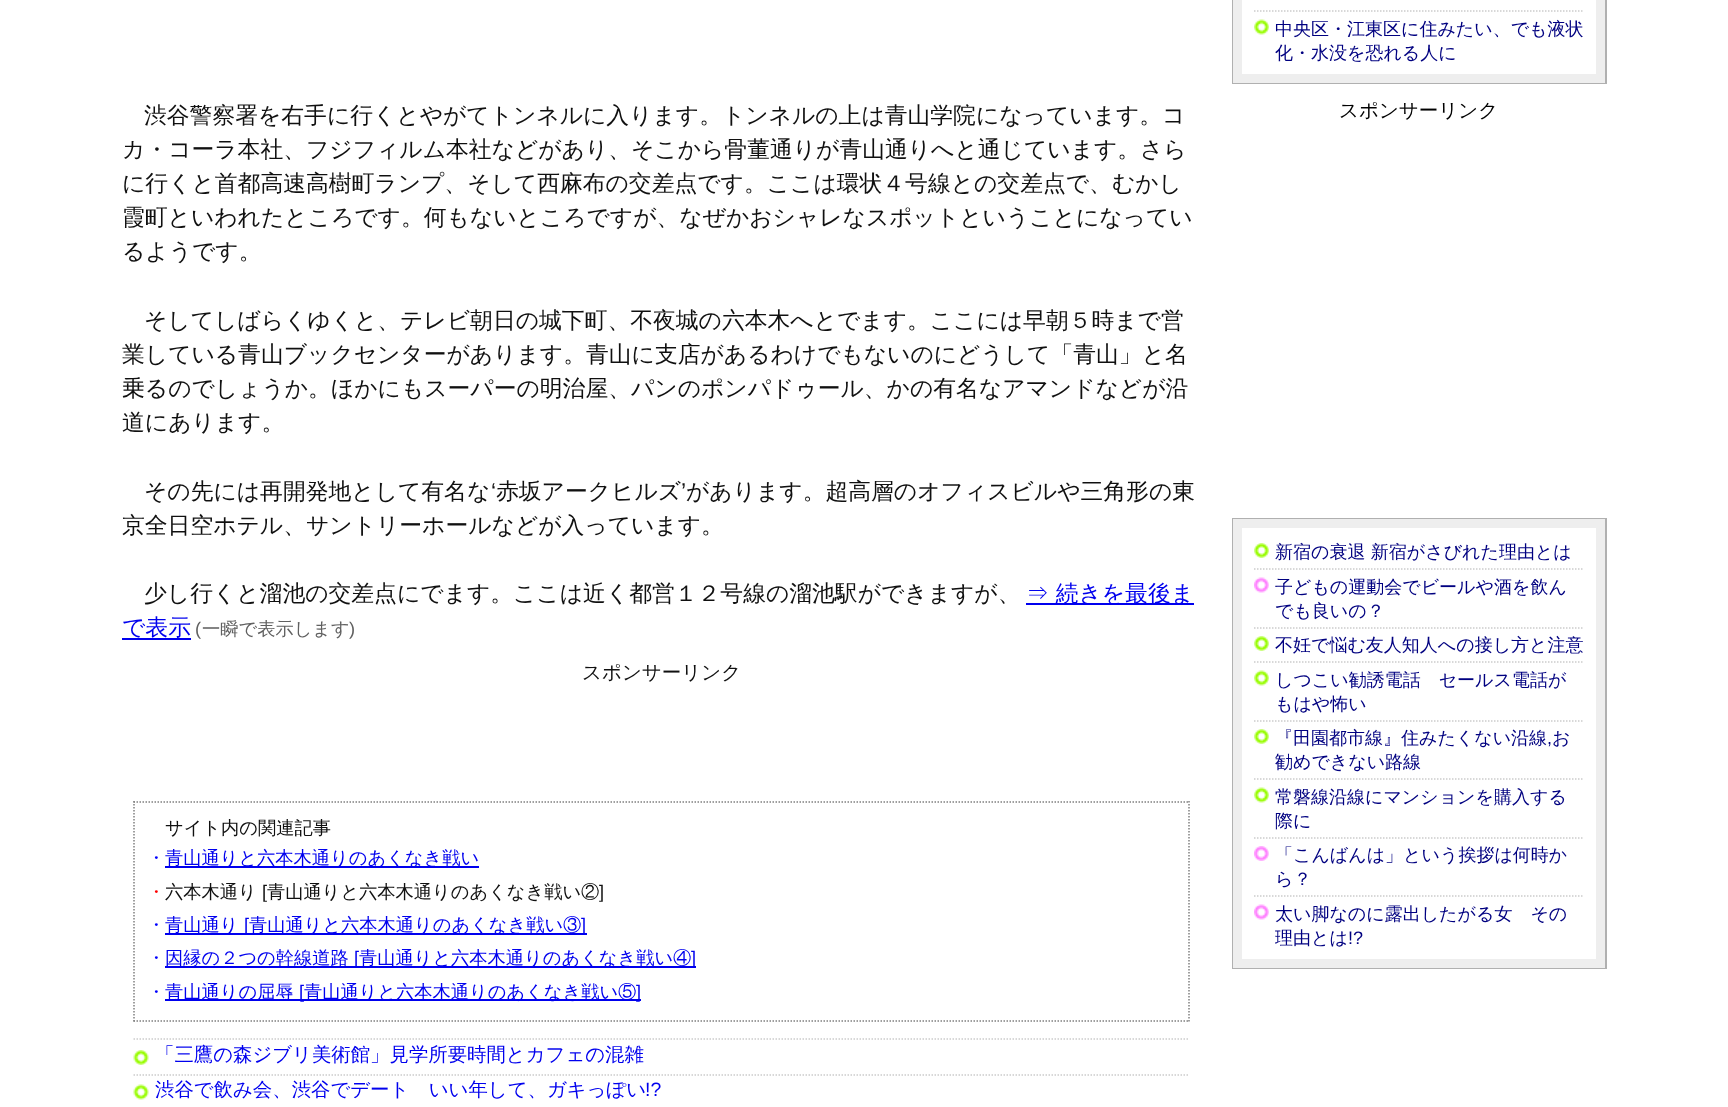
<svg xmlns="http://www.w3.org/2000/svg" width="1728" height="1107">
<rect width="100%" height="100%" fill="#fff"/>
<text x="144" y="123" style="font-family:WenQuanYi Zen Hei;font-size:22.8px;font-weight:500;fill:#101010">渋谷警察署を右手に行くとやがてトンネルに入ります。トンネルの上は青山学院になっています。コ</text>
<text x="122" y="157" style="font-family:WenQuanYi Zen Hei;font-size:22.8px;font-weight:500;fill:#101010">カ・コーラ本社、フジフィルム本社などがあり、そこから骨董通りが青山通りへと通じています。さら</text>
<text x="122" y="191" style="font-family:WenQuanYi Zen Hei;font-size:22.8px;font-weight:500;fill:#101010">に行くと首都高速高樹町ランプ、そして西麻布の交差点です。ここは環状４号線との交差点で、むかし</text>
<text x="122" y="225" style="font-family:WenQuanYi Zen Hei;font-size:22.8px;font-weight:500;fill:#101010">霞町といわれたところです。何もないところですが、なぜかおシャレなスポットということになってい</text>
<text x="122" y="259" style="font-family:WenQuanYi Zen Hei;font-size:22.8px;font-weight:500;fill:#101010">るようです。</text>
<text x="144" y="328" style="font-family:WenQuanYi Zen Hei;font-size:22.8px;font-weight:500;fill:#101010">そしてしばらくゆくと、テレビ朝日の城下町、不夜城の六本木へとでます。ここには早朝５時まで営</text>
<text x="122" y="362" style="font-family:WenQuanYi Zen Hei;font-size:22.8px;font-weight:500;fill:#101010">業している青山ブックセンターがあります。青山に支店があるわけでもないのにどうして「青山」と名</text>
<text x="122" y="396" style="font-family:WenQuanYi Zen Hei;font-size:22.8px;font-weight:500;fill:#101010">乗るのでしょうか。ほかにもスーパーの明治屋、パンのポンパドゥール、かの有名なアマンドなどが沿</text>
<text x="122" y="430" style="font-family:WenQuanYi Zen Hei;font-size:22.8px;font-weight:500;fill:#101010">道にあります。</text>
<text x="144" y="499" style="font-family:WenQuanYi Zen Hei;font-size:22.8px;font-weight:500;fill:#101010">その先には再開発地として有名な</text>
<text x="491" y="499" style="font-family:Liberation Sans;font-size:22.8px;fill:#101010">‘</text>
<text x="496" y="499" style="font-family:WenQuanYi Zen Hei;font-size:22.8px;font-weight:500;fill:#101010">赤坂アークヒルズ</text>
<text x="681" y="499" style="font-family:Liberation Sans;font-size:22.8px;fill:#101010">’</text>
<text x="686" y="499" style="font-family:WenQuanYi Zen Hei;font-size:22.8px;font-weight:500;fill:#101010">があります。超高層のオフィスビルや三角形の東</text>
<text x="122" y="533" style="font-family:WenQuanYi Zen Hei;font-size:22.8px;font-weight:500;fill:#101010">京全日空ホテル、サントリーホールなどが入っています。</text>
<text x="144" y="601" style="font-family:WenQuanYi Zen Hei;font-size:22.8px;font-weight:500;fill:#101010">少し行くと溜池の交差点にでます。ここは近く都営１２号線の溜池駅ができますが、</text>
<rect x="1026" y="603" width="168" height="2" fill="#00e"/>
<text x="1026" y="601" style="font-family:WenQuanYi Zen Hei;font-size:22.8px;font-weight:500;fill:#00e">⇒ 続きを最後ま</text>
<text x="122" y="635" style="font-family:WenQuanYi Zen Hei;font-size:22.8px;font-weight:500;fill:#00e">で表示</text>
<text x="195" y="635" style="font-family:Liberation Sans;font-size:18.25px;fill:#606060">(</text>
<rect x="122" y="638" width="69" height="2" fill="#00e"/>
<text x="202" y="635" style="font-family:WenQuanYi Zen Hei;font-size:18.25px;font-weight:500;fill:#606060">一瞬で表示します</text>
<text x="349" y="635" style="font-family:Liberation Sans;font-size:18.25px;fill:#606060">)</text>
<text x="582" y="679" style="font-family:WenQuanYi Zen Hei;font-size:19.5px;font-weight:500;fill:#101010">スポンサーリンク</text>
<path d="M133.5 802h1056" fill="none" stroke="#808080" stroke-width="1.5" stroke-dasharray="1.5 1.5"/>
<path d="M1189 801v220.5" fill="none" stroke="#808080" stroke-width="1.5" stroke-dasharray="1.5 1.5"/>
<path d="M133.5 1021h1056" fill="none" stroke="#808080" stroke-width="1.5" stroke-dasharray="1.5 1.5"/>
<path d="M134 801v220.5" fill="none" stroke="#808080" stroke-width="1.5" stroke-dasharray="1.5 1.5"/>
<text x="165" y="834" style="font-family:WenQuanYi Zen Hei;font-size:18.25px;font-weight:500;fill:#101010">サイト内の関連記事</text>
<text x="147" y="864" style="font-family:WenQuanYi Zen Hei;font-size:18.25px;font-weight:500;fill:#00f">・</text>
<rect x="165" y="866" width="314" height="2" fill="#00e"/>
<text x="165" y="864" style="font-family:WenQuanYi Zen Hei;font-size:18.25px;font-weight:500;fill:#00e">青山通りと六本木通りのあくなき戦い</text>
<text x="147" y="898" style="font-family:WenQuanYi Zen Hei;font-size:18.25px;font-weight:500;fill:#f00">・</text>
<text x="165" y="898" style="font-family:WenQuanYi Zen Hei;font-size:18.25px;font-weight:500;fill:#101010">六本木通り</text>
<text x="262" y="898" style="font-family:Liberation Sans;font-size:18.25px;fill:#101010">[</text>
<text x="267" y="898" style="font-family:WenQuanYi Zen Hei;font-size:18.25px;font-weight:500;fill:#101010">青山通りと六本木通りのあくなき戦い②</text>
<text x="599" y="898" style="font-family:Liberation Sans;font-size:18.25px;fill:#101010">]</text>
<text x="147" y="931" style="font-family:WenQuanYi Zen Hei;font-size:18.25px;font-weight:500;fill:#00f">・</text>
<rect x="165" y="933" width="422" height="2" fill="#00e"/>
<text x="165" y="931" style="font-family:WenQuanYi Zen Hei;font-size:18.25px;font-weight:500;fill:#00e">青山通り</text>
<text x="244" y="931" style="font-family:Liberation Sans;font-size:18.25px;fill:#00e">[</text>
<text x="249" y="931" style="font-family:WenQuanYi Zen Hei;font-size:18.25px;font-weight:500;fill:#00e">青山通りと六本木通りのあくなき戦い③</text>
<text x="581" y="931" style="font-family:Liberation Sans;font-size:18.25px;fill:#00e">]</text>
<text x="147" y="964" style="font-family:WenQuanYi Zen Hei;font-size:18.25px;font-weight:500;fill:#00f">・</text>
<rect x="165" y="966" width="531" height="2" fill="#00e"/>
<text x="165" y="964" style="font-family:WenQuanYi Zen Hei;font-size:18.25px;font-weight:500;fill:#00e">因縁の２つの幹線道路</text>
<text x="354" y="964" style="font-family:Liberation Sans;font-size:18.25px;fill:#00e">[</text>
<text x="359" y="964" style="font-family:WenQuanYi Zen Hei;font-size:18.25px;font-weight:500;fill:#00e">青山通りと六本木通りのあくなき戦い④</text>
<text x="691" y="964" style="font-family:Liberation Sans;font-size:18.25px;fill:#00e">]</text>
<text x="147" y="998" style="font-family:WenQuanYi Zen Hei;font-size:18.25px;font-weight:500;fill:#00f">・</text>
<rect x="165" y="999" width="476" height="2" fill="#00e"/>
<text x="165" y="998" style="font-family:WenQuanYi Zen Hei;font-size:18.25px;font-weight:500;fill:#00e">青山通りの屈辱</text>
<text x="299" y="998" style="font-family:Liberation Sans;font-size:18.25px;fill:#00e">[</text>
<text x="304" y="998" style="font-family:WenQuanYi Zen Hei;font-size:18.25px;font-weight:500;fill:#00e">青山通りと六本木通りのあくなき戦い⑤</text>
<text x="636" y="998" style="font-family:Liberation Sans;font-size:18.25px;fill:#00e">]</text>
<path d="M133.5 1039h1056" fill="none" stroke="#ccc" stroke-width="1.5" stroke-dasharray="1.5 1.5"/>
<image x="133" y="1050" width="16" height="15" href="media/1.png"/>
<path d="M133.5 1075h1056" fill="none" stroke="#ccc" stroke-width="1.5" stroke-dasharray="1.5 1.5"/>
<text x="155" y="1061" style="font-family:WenQuanYi Zen Hei;font-size:19.4px;font-weight:500;fill:#00e">「三鷹の森ジブリ美術館」見学所要時間とカフェの混雑</text>
<image x="133" y="1084" width="16" height="16" href="media/2.png"/>
<text x="155" y="1096" style="font-family:WenQuanYi Zen Hei;font-size:19.4px;font-weight:500;fill:#00e">渋谷で飲み会、渋谷でデート　いい年して、ガキっぽい</text>
<text x="645" y="1096" style="font-family:Liberation Sans;font-size:19.4px;fill:#00e">!?</text>
<rect x="1233" y="-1" width="373" height="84" fill="none" stroke="#b0b0b0" stroke-width="2"/>
<rect x="1237.5" y="-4.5" width="363" height="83" fill="none" stroke="#eee" stroke-width="9"/>
<path d="M1254 11h330" fill="none" stroke="#ccc" stroke-width="1.5" stroke-dasharray="1.5 1.5"/>
<image x="1254" y="19" width="15" height="16" href="media/3.png"/>
<text x="1275" y="35" style="font-family:WenQuanYi Zen Hei;font-size:18px;font-weight:500;fill:#000080">中央区・江東区に住みたい、でも液状</text>
<text x="1275" y="59" style="font-family:WenQuanYi Zen Hei;font-size:18px;font-weight:500;fill:#000080">化・水没を恐れる人に</text>
<text x="1339" y="117" style="font-family:WenQuanYi Zen Hei;font-size:19.5px;font-weight:500;fill:#000">スポンサーリンク</text>
<rect x="1233" y="519" width="373" height="449" fill="none" stroke="#b0b0b0" stroke-width="2"/>
<rect x="1237.5" y="523.5" width="363" height="440" fill="none" stroke="#eee" stroke-width="9"/>
<image x="1254" y="543" width="15" height="15" href="media/4.png"/>
<path d="M1254 569h330" fill="none" stroke="#ccc" stroke-width="1.5" stroke-dasharray="1.5 1.5"/>
<text x="1275" y="558" style="font-family:WenQuanYi Zen Hei;font-size:18px;font-weight:500;fill:#000080">新宿の衰退 新宿がさびれた理由とは</text>
<image x="1254" y="577" width="15" height="16" href="media/5.png"/>
<path d="M1254 628h330" fill="none" stroke="#ccc" stroke-width="1.5" stroke-dasharray="1.5 1.5"/>
<text x="1275" y="593" style="font-family:WenQuanYi Zen Hei;font-size:18px;font-weight:500;fill:#000080">子どもの運動会でビールや酒を飲ん</text>
<text x="1275" y="617" style="font-family:WenQuanYi Zen Hei;font-size:18px;font-weight:500;fill:#000080">でも良いの？</text>
<image x="1254" y="636" width="15" height="15" href="media/4.png"/>
<path d="M1254 662h330" fill="none" stroke="#ccc" stroke-width="1.5" stroke-dasharray="1.5 1.5"/>
<text x="1275" y="651" style="font-family:WenQuanYi Zen Hei;font-size:18px;font-weight:500;fill:#000080">不妊で悩む友人知人への接し方と注意</text>
<image x="1254" y="670" width="15" height="16" href="media/3.png"/>
<path d="M1254 721h330" fill="none" stroke="#ccc" stroke-width="1.5" stroke-dasharray="1.5 1.5"/>
<text x="1275" y="686" style="font-family:WenQuanYi Zen Hei;font-size:18px;font-weight:500;fill:#000080">しつこい勧誘電話　セールス電話が</text>
<text x="1275" y="710" style="font-family:WenQuanYi Zen Hei;font-size:18px;font-weight:500;fill:#000080">もはや怖い</text>
<image x="1254" y="729" width="15" height="15" href="media/4.png"/>
<path d="M1254 779h330" fill="none" stroke="#ccc" stroke-width="1.5" stroke-dasharray="1.5 1.5"/>
<text x="1275" y="744" style="font-family:WenQuanYi Zen Hei;font-size:18px;font-weight:500;fill:#000080">『田園都市線』住みたくない沿線</text>
<text x="1547" y="744" style="font-family:Liberation Sans;font-size:18px;fill:#000080">,</text>
<text x="1552" y="744" style="font-family:WenQuanYi Zen Hei;font-size:18px;font-weight:500;fill:#000080">お</text>
<text x="1275" y="768" style="font-family:WenQuanYi Zen Hei;font-size:18px;font-weight:500;fill:#000080">勧めできない路線</text>
<image x="1254" y="787" width="15" height="16" href="media/3.png"/>
<path d="M1254 838h330" fill="none" stroke="#ccc" stroke-width="1.5" stroke-dasharray="1.5 1.5"/>
<text x="1275" y="803" style="font-family:WenQuanYi Zen Hei;font-size:18px;font-weight:500;fill:#000080">常磐線沿線にマンションを購入する</text>
<text x="1275" y="827" style="font-family:WenQuanYi Zen Hei;font-size:18px;font-weight:500;fill:#000080">際に</text>
<image x="1254" y="846" width="15" height="15" href="media/6.png"/>
<path d="M1254 896h330" fill="none" stroke="#ccc" stroke-width="1.5" stroke-dasharray="1.5 1.5"/>
<text x="1275" y="861" style="font-family:WenQuanYi Zen Hei;font-size:18px;font-weight:500;fill:#000080">「こんばんは」という挨拶は何時か</text>
<text x="1275" y="885" style="font-family:WenQuanYi Zen Hei;font-size:18px;font-weight:500;fill:#000080">ら？</text>
<image x="1254" y="904" width="15" height="16" href="media/5.png"/>
<text x="1275" y="920" style="font-family:WenQuanYi Zen Hei;font-size:18px;font-weight:500;fill:#000080">太い脚なのに露出したがる女　その</text>
<text x="1275" y="944" style="font-family:WenQuanYi Zen Hei;font-size:18px;font-weight:500;fill:#000080">理由とは</text>
<text x="1348" y="944" style="font-family:Liberation Sans;font-size:18px;fill:#000080">!?</text>
</svg>
